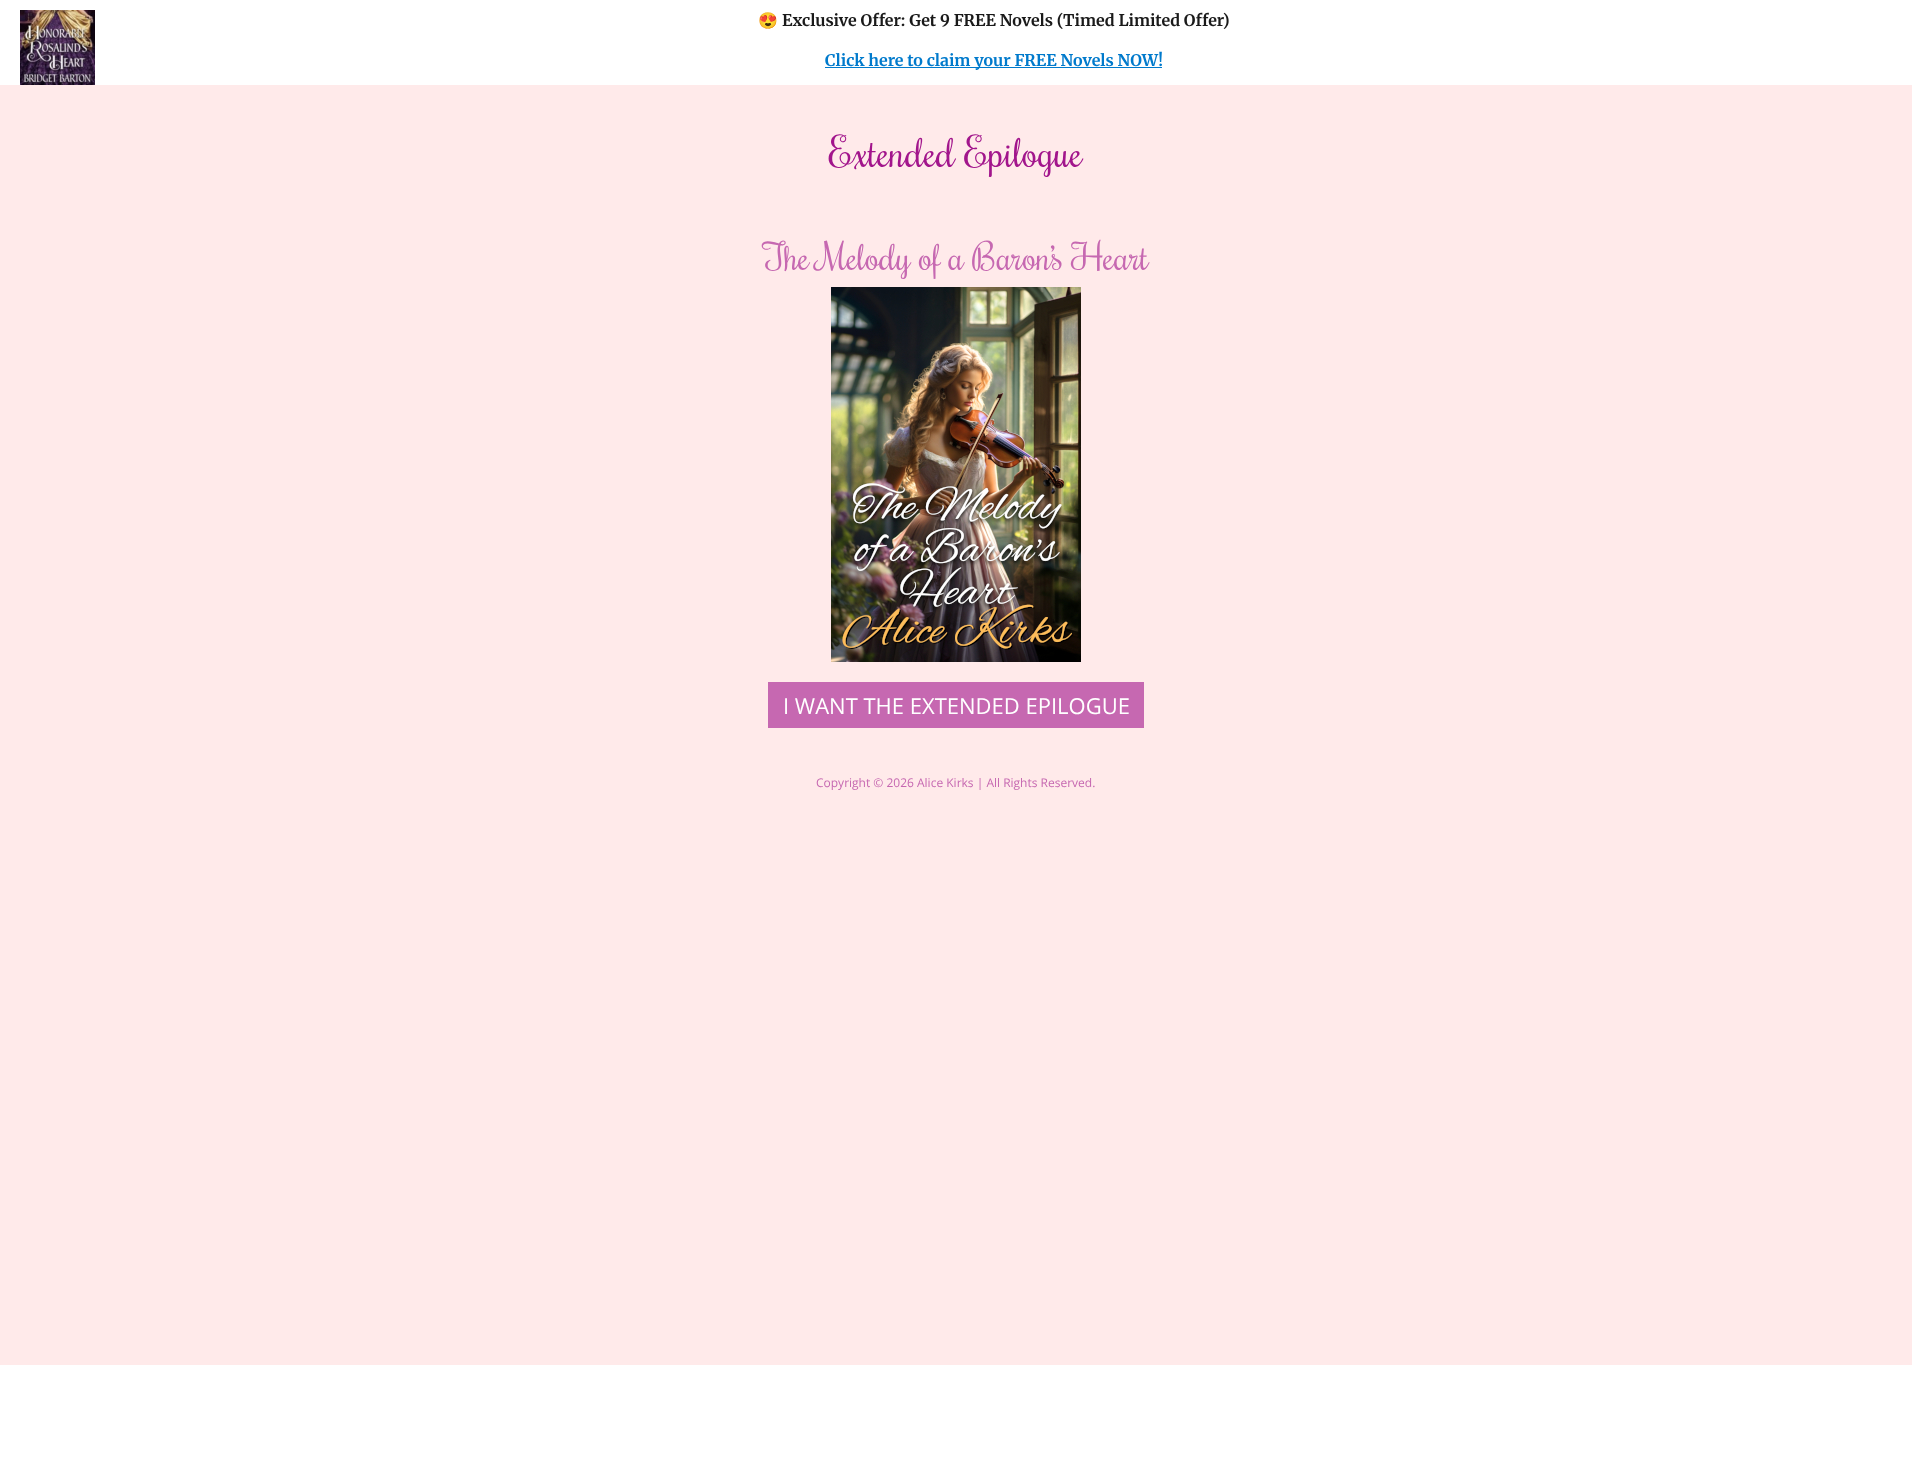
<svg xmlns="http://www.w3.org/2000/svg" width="1912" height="1479">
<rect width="100%" height="100%" fill="#fff"/>
<image x="20" y="10" width="75" height="75" href="media/1.png"/>
<text x="758" y="26" style="font-family:Noto Color Emoji;font-size:16px;font-weight:bold;fill:#1a1a1a">😍</text>
<text x="782" y="26" style="font-family:Merriweather;font-size:16px;font-weight:bold;fill:#1a1a1a">Exclusive Offer: Get 9 FREE Novels (Timed Limited Offer)</text>
<rect x="825" y="67" width="337" height="1" fill="#007acc"/>
<text x="825" y="66" style="font-family:Merriweather;font-size:16px;font-weight:bold;fill:#007acc">Click here to claim your FREE Novels NOW!</text>
<rect y="85" width="1912" height="1280" fill="#ffeaea"/>
<text x="829" y="167" style="font-family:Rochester;font-size:40px;fill:#a2158c">Extended Epilogue</text>
<text x="764" y="270" style="font-family:Rochester;font-size:36px;fill:#c668b1">The Melody of a Baron’s Heart</text>
<image x="831" y="287" width="250" height="375" href="media/2.png"/>
<rect x="768" y="682" width="376" height="46" fill="#c668b1"/>
<text x="783" y="714" style="font-family:Open Sans;font-size:22px;fill:#fff">I WANT THE EXTENDED EPILOGUE</text>
<text x="816" y="787" style="font-family:Open Sans;font-size:12px;fill:#c668b1">Copyright © 2026 Alice Kirks | All Rights Reserved.</text>
</svg>
